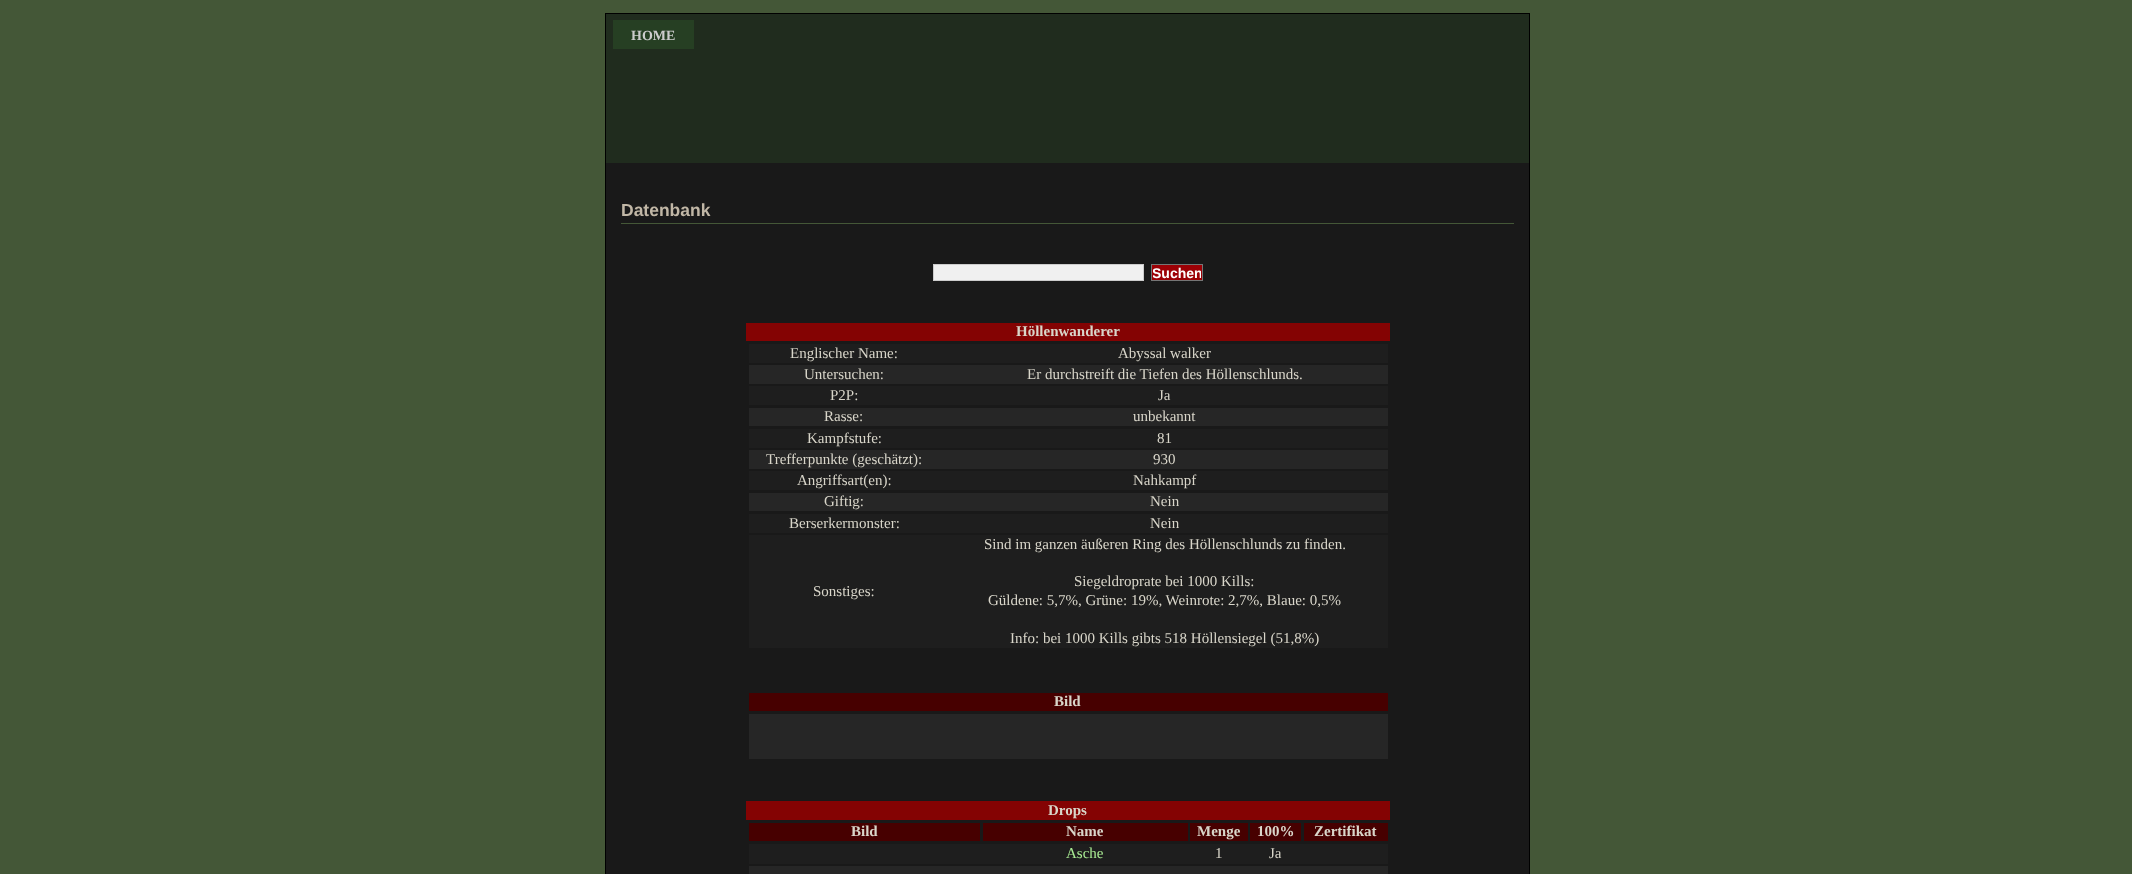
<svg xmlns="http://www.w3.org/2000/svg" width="2132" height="874">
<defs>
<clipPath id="clip1"><rect x="1153" y="265" width="48" height="15"/></clipPath>
</defs>
<rect width="100%" height="100%" fill="#445737"/>
<rect x="605.5" y="13.5" width="924" height="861" fill="none" stroke="#000"/>
<rect x="606" y="14" width="923" height="149" fill="#202c1e"/>
<rect x="613" y="20" width="81" height="29" fill="#263f23"/>
<text x="631" y="40" style="font-family:Liberation Serif;font-size:14px;font-weight:bold;fill:#ccc">HOME</text>
<rect x="606" y="163" width="923" height="711" fill="#191919"/>
<rect x="621" y="223" width="893" height="1" fill="#445737"/>
<text x="621" y="216" style="font-family:Liberation Sans;font-size:17.5px;font-weight:bold;fill:#c1b7a6">Datenbank</text>
<rect x="933.5" y="264.5" width="210" height="16" fill="#f0f0f0" stroke="#ccc"/>
<rect x="1151.5" y="264.5" width="51" height="16" fill="#9c0005" stroke="#757575"/>
<g clip-path="url(#clip1)">
<text x="1152" y="278" style="font-family:Liberation Sans;font-size:14px;font-weight:bold;fill:#fff">Suchen</text>
</g>
<rect x="746" y="323" width="644" height="18" fill="#840303"/>
<text x="1016" y="336" style="font-family:Liberation Serif;font-size:15px;font-weight:bold;fill:#d9d6ca">Höllenwanderer</text>
<rect x="749" y="344" width="639" height="19" fill="#1e1e1e"/>
<text x="790" y="358" style="font-family:Liberation Serif;font-size:15px;fill:#d9d6ca">Englischer Name:</text>
<text x="1118" y="358" style="font-family:Liberation Serif;font-size:15px;fill:#d9d6ca">Abyssal walker</text>
<rect x="749" y="365" width="639" height="19" fill="#262626"/>
<text x="804" y="379" style="font-family:Liberation Serif;font-size:15px;fill:#d9d6ca">Untersuchen:</text>
<text x="1027" y="379" style="font-family:Liberation Serif;font-size:15px;fill:#d9d6ca">Er durchstreift die Tiefen des Höllenschlunds.</text>
<rect x="749" y="386" width="639" height="19" fill="#1e1e1e"/>
<text x="830" y="400" style="font-family:Liberation Serif;font-size:15px;fill:#d9d6ca">P2P:</text>
<text x="1158" y="400" style="font-family:Liberation Serif;font-size:15px;fill:#d9d6ca">Ja</text>
<rect x="749" y="408" width="639" height="18" fill="#262626"/>
<text x="824" y="421" style="font-family:Liberation Serif;font-size:15px;fill:#d9d6ca">Rasse:</text>
<text x="1133" y="421" style="font-family:Liberation Serif;font-size:15px;fill:#d9d6ca">unbekannt</text>
<rect x="749" y="429" width="639" height="19" fill="#1e1e1e"/>
<text x="807" y="443" style="font-family:Liberation Serif;font-size:15px;fill:#d9d6ca">Kampfstufe:</text>
<text x="1157" y="443" style="font-family:Liberation Serif;font-size:15px;fill:#d9d6ca">81</text>
<rect x="749" y="450" width="639" height="19" fill="#262626"/>
<text x="766" y="464" style="font-family:Liberation Serif;font-size:15px;fill:#d9d6ca">Trefferpunkte (geschätzt):</text>
<text x="1153" y="464" style="font-family:Liberation Serif;font-size:15px;fill:#d9d6ca">930</text>
<rect x="749" y="471" width="639" height="19" fill="#1e1e1e"/>
<text x="797" y="485" style="font-family:Liberation Serif;font-size:15px;fill:#d9d6ca">Angriffsart(en):</text>
<text x="1133" y="485" style="font-family:Liberation Serif;font-size:15px;fill:#d9d6ca">Nahkampf</text>
<rect x="749" y="493" width="639" height="18" fill="#262626"/>
<text x="824" y="506" style="font-family:Liberation Serif;font-size:15px;fill:#d9d6ca">Giftig:</text>
<text x="1150" y="506" style="font-family:Liberation Serif;font-size:15px;fill:#d9d6ca">Nein</text>
<rect x="749" y="514" width="639" height="19" fill="#1e1e1e"/>
<text x="789" y="528" style="font-family:Liberation Serif;font-size:15px;fill:#d9d6ca">Berserkermonster:</text>
<text x="1150" y="528" style="font-family:Liberation Serif;font-size:15px;fill:#d9d6ca">Nein</text>
<rect x="749" y="535" width="639" height="113" fill="#1e1e1e"/>
<text x="813" y="596" style="font-family:Liberation Serif;font-size:15px;fill:#d9d6ca">Sonstiges:</text>
<text x="984" y="549" style="font-family:Liberation Serif;font-size:15px;fill:#d9d6ca">Sind im ganzen äußeren Ring des Höllenschlunds zu finden.</text>
<text x="1074" y="586" style="font-family:Liberation Serif;font-size:15px;fill:#d9d6ca">Siegeldroprate bei 1000 Kills:</text>
<text x="988" y="605" style="font-family:Liberation Serif;font-size:15px;fill:#d9d6ca">Güldene: 5,7%, Grüne: 19%, Weinrote: 2,7%, Blaue: 0,5%</text>
<text x="1010" y="643" style="font-family:Liberation Serif;font-size:15px;fill:#d9d6ca">Info: bei 1000 Kills gibts 518 Höllensiegel (51,8%)</text>
<rect x="749" y="693" width="639" height="18" fill="#470000"/>
<text x="1054" y="706" style="font-family:Liberation Serif;font-size:15px;font-weight:bold;fill:#d9d6ca">Bild</text>
<rect x="749" y="714" width="639" height="45" fill="#262626"/>
<rect x="746" y="801" width="644" height="19" fill="#840303"/>
<text x="1048" y="815" style="font-family:Liberation Serif;font-size:15px;font-weight:bold;fill:#d9d6ca">Drops</text>
<rect x="749" y="823" width="231" height="18" fill="#470000"/>
<text x="851" y="836" style="font-family:Liberation Serif;font-size:15px;font-weight:bold;fill:#d9d6ca">Bild</text>
<rect x="983" y="823" width="205" height="18" fill="#470000"/>
<text x="1066" y="836" style="font-family:Liberation Serif;font-size:15px;font-weight:bold;fill:#d9d6ca">Name</text>
<rect x="1190" y="823" width="58" height="18" fill="#470000"/>
<text x="1197" y="836" style="font-family:Liberation Serif;font-size:15px;font-weight:bold;fill:#d9d6ca">Menge</text>
<rect x="1250" y="823" width="51" height="18" fill="#470000"/>
<text x="1257" y="836" style="font-family:Liberation Serif;font-size:15px;font-weight:bold;fill:#d9d6ca">100%</text>
<rect x="1304" y="823" width="84" height="18" fill="#470000"/>
<text x="1314" y="836" style="font-family:Liberation Serif;font-size:15px;font-weight:bold;fill:#d9d6ca">Zertifikat</text>
<rect x="749" y="844" width="639" height="20" fill="#1e1e1e"/>
<text x="1066" y="858" style="font-family:Liberation Serif;font-size:15px;fill:#aaed94">Asche</text>
<text x="1215" y="858" style="font-family:Liberation Serif;font-size:15px;fill:#d9d6ca">1</text>
<text x="1269" y="858" style="font-family:Liberation Serif;font-size:15px;fill:#d9d6ca">Ja</text>
<rect x="749" y="866" width="639" height="8" fill="#262626"/>
</svg>
